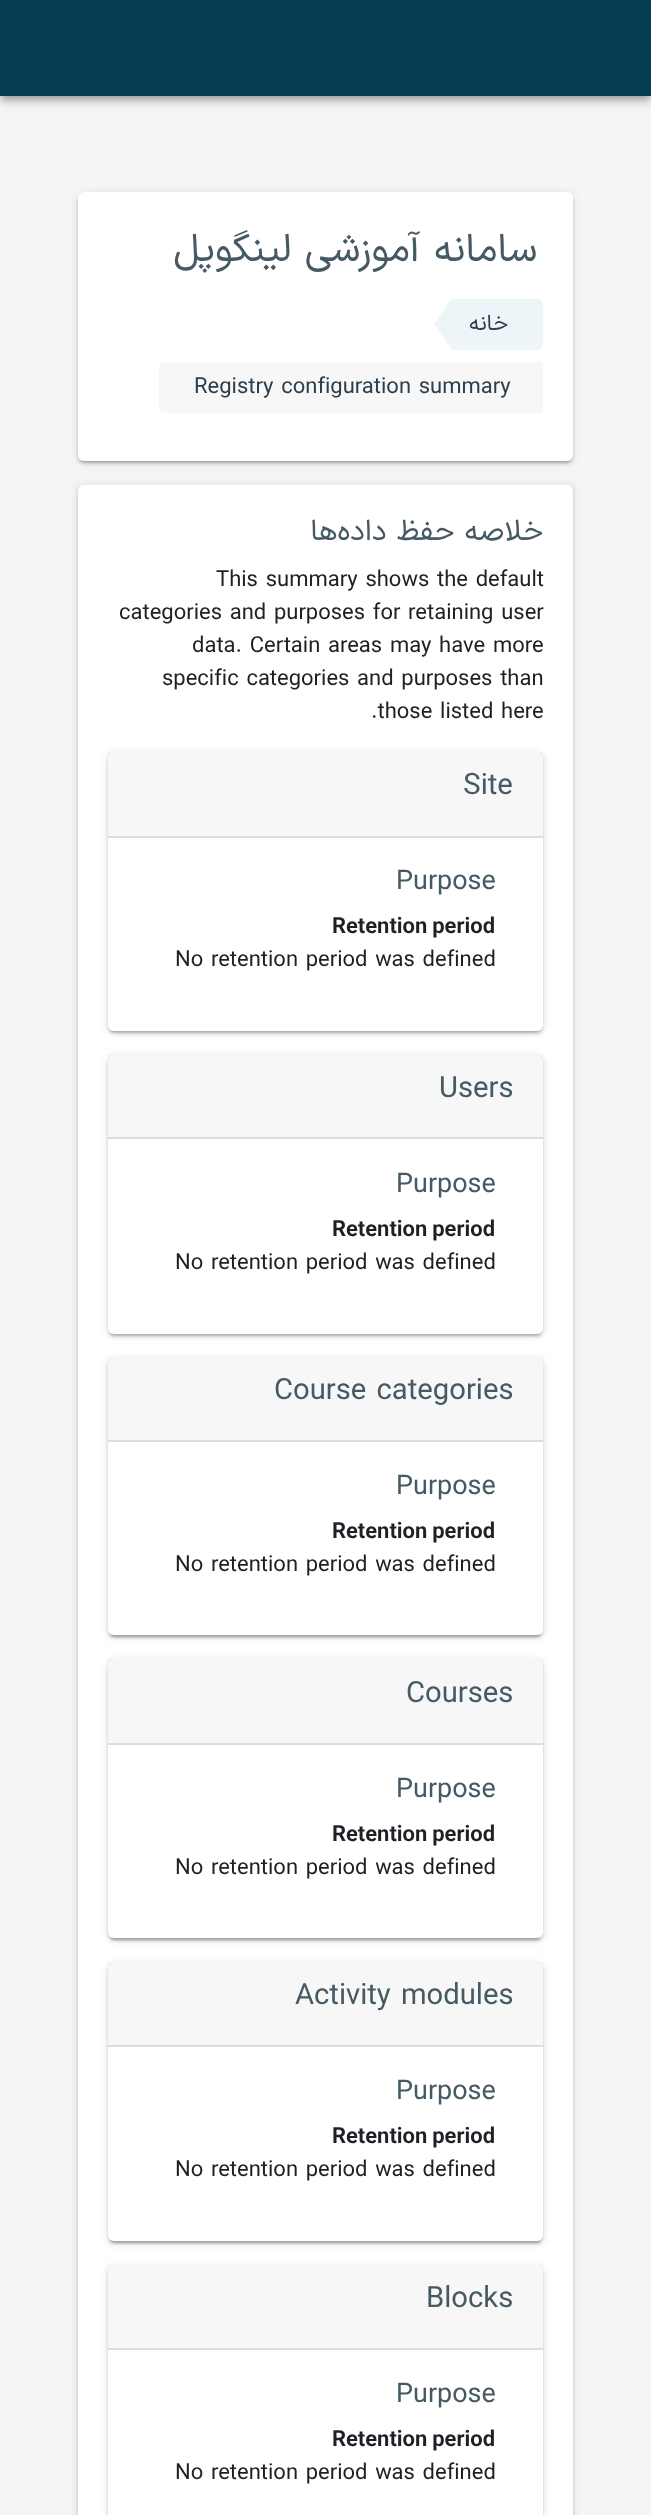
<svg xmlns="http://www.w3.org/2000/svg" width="651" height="2515">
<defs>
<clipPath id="clip1"><rect x="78" y="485" width="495" height="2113"/></clipPath>
</defs>
<rect width="100%" height="100%" fill="#f5f5f5"/>
<rect y="2" width="651" height="96" fill="#0000001f" filter="blur(7.5px)"/>
<rect y="6" width="651" height="96" fill="#00000024" filter="blur(4px)"/>
<rect x="2" y="5" width="648" height="93" fill="#00000033" filter="blur(3px)"/>
<rect width="651" height="96" fill="#073e53"/>
<rect x="78" y="194" width="495" height="268" rx="6" fill="#0000001f" filter="blur(4px)"/>
<rect x="78" y="195" width="495" height="269" rx="6" fill="#00000024" filter="blur(1.5px)"/>
<rect x="81" y="200" width="489" height="262" rx="3" fill="#00000033" filter="blur(1px)"/>
<rect x="78" y="192" width="495" height="269" rx="6" fill="#fff"/>
<text x="537" y="261" style="font-family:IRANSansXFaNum;font-size:39.25px;direction:rtl;fill:#455a64">سامانه آموزشی لینگوپل</text>
<path d="M452 299h85c3.5 0 6 2.5 6 6v39c0 3.5-2.5 6-6 6h-85z" fill="#eef5f9"/>
<path d="M452 298v52l-18-26z" fill="#eef5f9"/>
<text x="508" y="330" style="font-family:IRANSansXFaNum;font-size:22px;direction:rtl;fill:#2c3f4c">خانه</text>
<path d="M165 362h378v51h-378c-3.5 0-6-2.5-6-6v-39c0-3.5 2.5-6 6-6z" fill="#f7f7f7"/>
<text x="194" y="393" style="font-family:IRANSansXFaNum;font-size:22px;fill:#2c3f4c">Registry configuration summary</text>
<rect x="78" y="486" width="495" height="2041" fill="#0000001f" filter="blur(4px)"/>
<rect x="78" y="488" width="495" height="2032" fill="#00000024" filter="blur(1.5px)"/>
<rect x="78" y="485" width="495" height="6" fill="#eef5f9"/>
<g clip-path="url(#clip1)">
<rect x="78" y="486" width="495" height="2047" rx="6" fill="#0000001f" filter="blur(4px)"/>
</g>
<rect x="78" y="485" width="495" height="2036" rx="6" fill="#fff"/>
<text x="543" y="540" style="font-family:IRANSansXFaNum;font-size:29.5px;direction:rtl;fill:#455a64">خلاصه حفظ داده‌ها</text>
<text x="216" y="586" style="font-family:IRANSansXFaNum;font-size:22px;fill:#1d2125">This summary shows the default</text>
<text x="119" y="619" style="font-family:IRANSansXFaNum;font-size:22px;fill:#1d2125">categories and purposes for retaining user</text>
<text x="192" y="652" style="font-family:IRANSansXFaNum;font-size:22px;fill:#1d2125">data. Certain areas may have more</text>
<text x="162" y="685" style="font-family:IRANSansXFaNum;font-size:22px;fill:#1d2125">specific categories and purposes than</text>
<text x="371" y="718" style="font-family:IRANSansXFaNum;font-size:22px;fill:#1d2125">.those listed here</text>
<rect x="108" y="753" width="435" height="279" rx="6" fill="#0000001f" filter="blur(4px)"/>
<rect x="108" y="755" width="435" height="279" rx="6" fill="#00000024" filter="blur(1.5px)"/>
<rect x="111" y="759" width="429" height="273" rx="3" fill="#00000033" filter="blur(1px)"/>
<rect x="108" y="752" width="435" height="279" rx="6" fill="#fff"/>
<rect x="108" y="752" width="435" height="84" fill="#00000008"/>
<rect x="108" y="836" width="435" height="2" fill="#d7dfe3"/>
<text x="463" y="794" style="font-family:IRANSansXFaNum;font-size:29.25px;fill:#455a64">Site</text>
<text x="396" y="889" style="font-family:IRANSansXFaNum;font-size:27px;fill:#455a64">Purpose</text>
<text x="332" y="933" style="font-family:IRANSansXFaNum;font-size:22px;font-weight:bold;fill:#1d2125">Retention period</text>
<text x="175" y="966" style="font-family:IRANSansXFaNum;font-size:22px;fill:#1d2125">No retention period was defined</text>
<rect x="108" y="1056" width="435" height="279" rx="6" fill="#0000001f" filter="blur(4px)"/>
<rect x="108" y="1058" width="435" height="279" rx="6" fill="#00000024" filter="blur(1.5px)"/>
<rect x="111" y="1062" width="429" height="273" rx="3" fill="#00000033" filter="blur(1px)"/>
<rect x="108" y="1055" width="435" height="279" rx="6" fill="#fff"/>
<rect x="108" y="1055" width="435" height="82" fill="#00000008"/>
<rect x="108" y="1137" width="435" height="2" fill="#d7dfe3"/>
<text x="439" y="1097" style="font-family:IRANSansXFaNum;font-size:29.25px;fill:#455a64">Users</text>
<text x="396" y="1192" style="font-family:IRANSansXFaNum;font-size:27px;fill:#455a64">Purpose</text>
<text x="332" y="1236" style="font-family:IRANSansXFaNum;font-size:22px;font-weight:bold;fill:#1d2125">Retention period</text>
<text x="175" y="1269" style="font-family:IRANSansXFaNum;font-size:22px;fill:#1d2125">No retention period was defined</text>
<rect x="108" y="1359" width="435" height="278" rx="6" fill="#0000001f" filter="blur(4px)"/>
<rect x="108" y="1361" width="435" height="277" rx="6" fill="#00000024" filter="blur(1.5px)"/>
<rect x="111" y="1365" width="429" height="272" rx="3" fill="#00000033" filter="blur(1px)"/>
<rect x="108" y="1358" width="435" height="277" rx="6" fill="#fff"/>
<rect x="108" y="1358" width="435" height="82" fill="#00000008"/>
<rect x="108" y="1440" width="435" height="2" fill="#d7dfe3"/>
<text x="274" y="1399" style="font-family:IRANSansXFaNum;font-size:29.25px;fill:#455a64">Course categories</text>
<text x="396" y="1494" style="font-family:IRANSansXFaNum;font-size:27px;fill:#455a64">Purpose</text>
<text x="332" y="1538" style="font-family:IRANSansXFaNum;font-size:22px;font-weight:bold;fill:#1d2125">Retention period</text>
<text x="175" y="1571" style="font-family:IRANSansXFaNum;font-size:22px;fill:#1d2125">No retention period was defined</text>
<rect x="108" y="1661" width="435" height="279" rx="6" fill="#0000001f" filter="blur(4px)"/>
<rect x="108" y="1662" width="435" height="279" rx="6" fill="#00000024" filter="blur(1.5px)"/>
<rect x="111" y="1667" width="429" height="273" rx="3" fill="#00000033" filter="blur(1px)"/>
<rect x="108" y="1659" width="435" height="279" rx="6" fill="#fff"/>
<rect x="108" y="1659" width="435" height="84" fill="#00000008"/>
<rect x="108" y="1743" width="435" height="2" fill="#d7dfe3"/>
<text x="406" y="1702" style="font-family:IRANSansXFaNum;font-size:29.25px;fill:#455a64">Courses</text>
<text x="396" y="1797" style="font-family:IRANSansXFaNum;font-size:27px;fill:#455a64">Purpose</text>
<text x="332" y="1841" style="font-family:IRANSansXFaNum;font-size:22px;font-weight:bold;fill:#1d2125">Retention period</text>
<text x="175" y="1874" style="font-family:IRANSansXFaNum;font-size:22px;fill:#1d2125">No retention period was defined</text>
<rect x="108" y="1964" width="435" height="279" rx="6" fill="#0000001f" filter="blur(4px)"/>
<rect x="108" y="1965" width="435" height="279" rx="6" fill="#00000024" filter="blur(1.5px)"/>
<rect x="111" y="1970" width="429" height="273" rx="3" fill="#00000033" filter="blur(1px)"/>
<rect x="108" y="1962" width="435" height="279" rx="6" fill="#fff"/>
<rect x="108" y="1962" width="435" height="83" fill="#00000008"/>
<rect x="108" y="2045" width="435" height="2" fill="#d7dfe3"/>
<text x="295" y="2004" style="font-family:IRANSansXFaNum;font-size:29.25px;fill:#455a64">Activity modules</text>
<text x="396" y="2099" style="font-family:IRANSansXFaNum;font-size:27px;fill:#455a64">Purpose</text>
<text x="332" y="2143" style="font-family:IRANSansXFaNum;font-size:22px;font-weight:bold;fill:#1d2125">Retention period</text>
<text x="175" y="2176" style="font-family:IRANSansXFaNum;font-size:22px;fill:#1d2125">No retention period was defined</text>
<rect x="108" y="2267" width="435" height="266" rx="6" fill="#0000001f" filter="blur(4px)"/>
<rect x="108" y="2268" width="435" height="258" rx="6" fill="#00000024" filter="blur(1.5px)"/>
<rect x="108" y="2265" width="435" height="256" rx="6" fill="#fff"/>
<rect x="108" y="2265" width="435" height="83" fill="#00000008"/>
<rect x="108" y="2348" width="435" height="2" fill="#d7dfe3"/>
<text x="426" y="2307" style="font-family:IRANSansXFaNum;font-size:29.25px;fill:#455a64">Blocks</text>
<text x="396" y="2402" style="font-family:IRANSansXFaNum;font-size:27px;fill:#455a64">Purpose</text>
<text x="332" y="2446" style="font-family:IRANSansXFaNum;font-size:22px;font-weight:bold;fill:#1d2125">Retention period</text>
<text x="175" y="2479" style="font-family:IRANSansXFaNum;font-size:22px;fill:#1d2125">No retention period was defined</text>
</svg>
